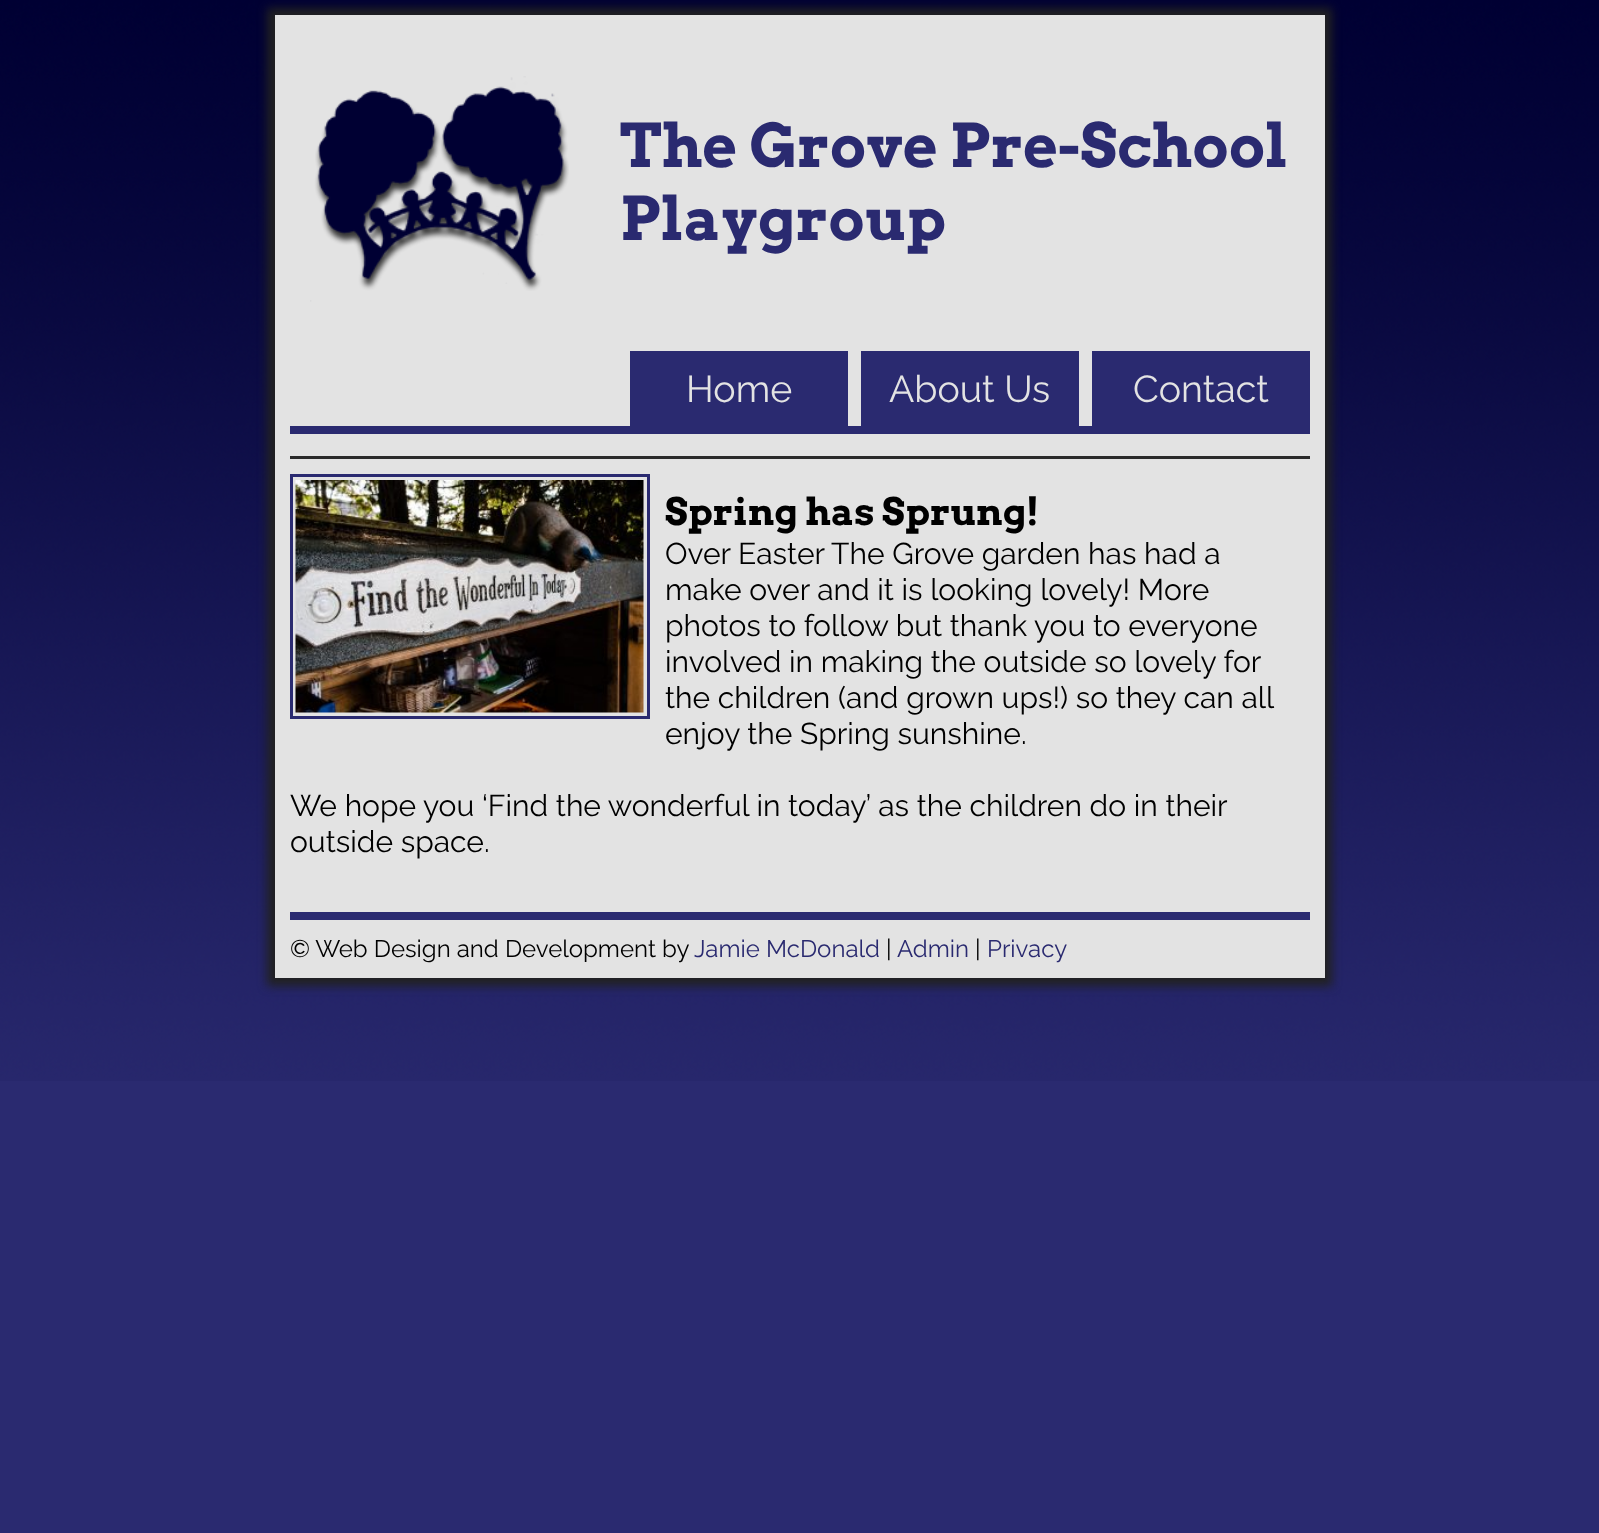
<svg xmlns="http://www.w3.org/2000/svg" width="1599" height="1533">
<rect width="100%" height="100%" fill="#2a2a70"/>
<image x="0" y="0" width="1599" height="1081" href="media/1.png"/>
<rect x="267" y="8" width="1065" height="978" fill="#212121" filter="blur(5px)"/>
<rect x="275" y="15" width="1050" height="963" fill="#e3e3e3"/>
<image x="310" y="76" width="259" height="226" href="media/2.png"/>
<text x="620" y="167" style="font-family:Arvo;font-size:60px;font-weight:bold;fill:#2a2a70">The Grove Pre-School</text>
<text x="620" y="240" style="font-family:Arvo;font-size:60px;font-weight:bold;fill:#2a2a70">Playgroup</text>
<rect x="290" y="426" width="1020" height="8" fill="#2a2a70"/>
<rect x="630" y="351" width="218" height="75" fill="#2a2a70"/>
<text x="686" y="402" style="font-family:Raleway;font-size:37.5px;font-weight:100;fill:#e3e3e3">Home</text>
<rect x="861" y="351" width="218" height="75" fill="#2a2a70"/>
<text x="889" y="402" style="font-family:Raleway;font-size:37.5px;font-weight:100;fill:#e3e3e3">About Us</text>
<rect x="1092" y="351" width="218" height="75" fill="#2a2a70"/>
<text x="1133" y="402" style="font-family:Raleway;font-size:37.5px;font-weight:100;fill:#e3e3e3">Contact</text>
<rect x="290" y="456" width="1020" height="3" fill="#2a2a2a"/>
<rect x="291.5" y="475.5" width="357" height="242" fill="none" stroke="#2a2a70" stroke-width="3"/>
<image x="295" y="480" width="349" height="233" href="media/3.png"/>
<text x="665" y="525" style="font-family:Arvo;font-size:37.5px;font-weight:bold;fill:#000">Spring has Sprung!</text>
<text x="665" y="564" style="font-family:Raleway;font-size:30px;font-weight:100;fill:#000">Over Easter The Grove garden has had a</text>
<text x="665" y="600" style="font-family:Raleway;font-size:30px;font-weight:100;fill:#000">make over and it is looking lovely! More</text>
<text x="665" y="636" style="font-family:Raleway;font-size:30px;font-weight:100;fill:#000">photos to follow but thank you to everyone</text>
<text x="665" y="672" style="font-family:Raleway;font-size:30px;font-weight:100;fill:#000">involved in making the outside so lovely for</text>
<text x="665" y="708" style="font-family:Raleway;font-size:30px;font-weight:100;fill:#000">the children (and grown ups!) so they can all</text>
<text x="665" y="744" style="font-family:Raleway;font-size:30px;font-weight:100;fill:#000">enjoy the Spring sunshine.</text>
<text x="290" y="816" style="font-family:Raleway;font-size:30px;font-weight:100;fill:#000">We hope you ‘Find the wonderful in today’ as the children do in their</text>
<text x="290" y="852" style="font-family:Raleway;font-size:30px;font-weight:100;fill:#000">outside space.</text>
<rect x="290" y="912" width="1020" height="8" fill="#2a2a70"/>
<text x="290" y="957" style="font-family:Raleway;font-size:24px;font-weight:100;fill:#000">© Web Design and Development by</text>
<text x="694" y="957" style="font-family:Raleway;font-size:24px;font-weight:100;fill:#2a2a70">Jamie McDonald</text>
<text x="886" y="957" style="font-family:Raleway;font-size:24px;font-weight:100;fill:#000">|</text>
<text x="897" y="957" style="font-family:Raleway;font-size:24px;font-weight:100;fill:#2a2a70">Admin</text>
<text x="975" y="957" style="font-family:Raleway;font-size:24px;font-weight:100;fill:#000">|</text>
<text x="987" y="957" style="font-family:Raleway;font-size:24px;font-weight:100;fill:#2a2a70">Privacy</text>
</svg>
